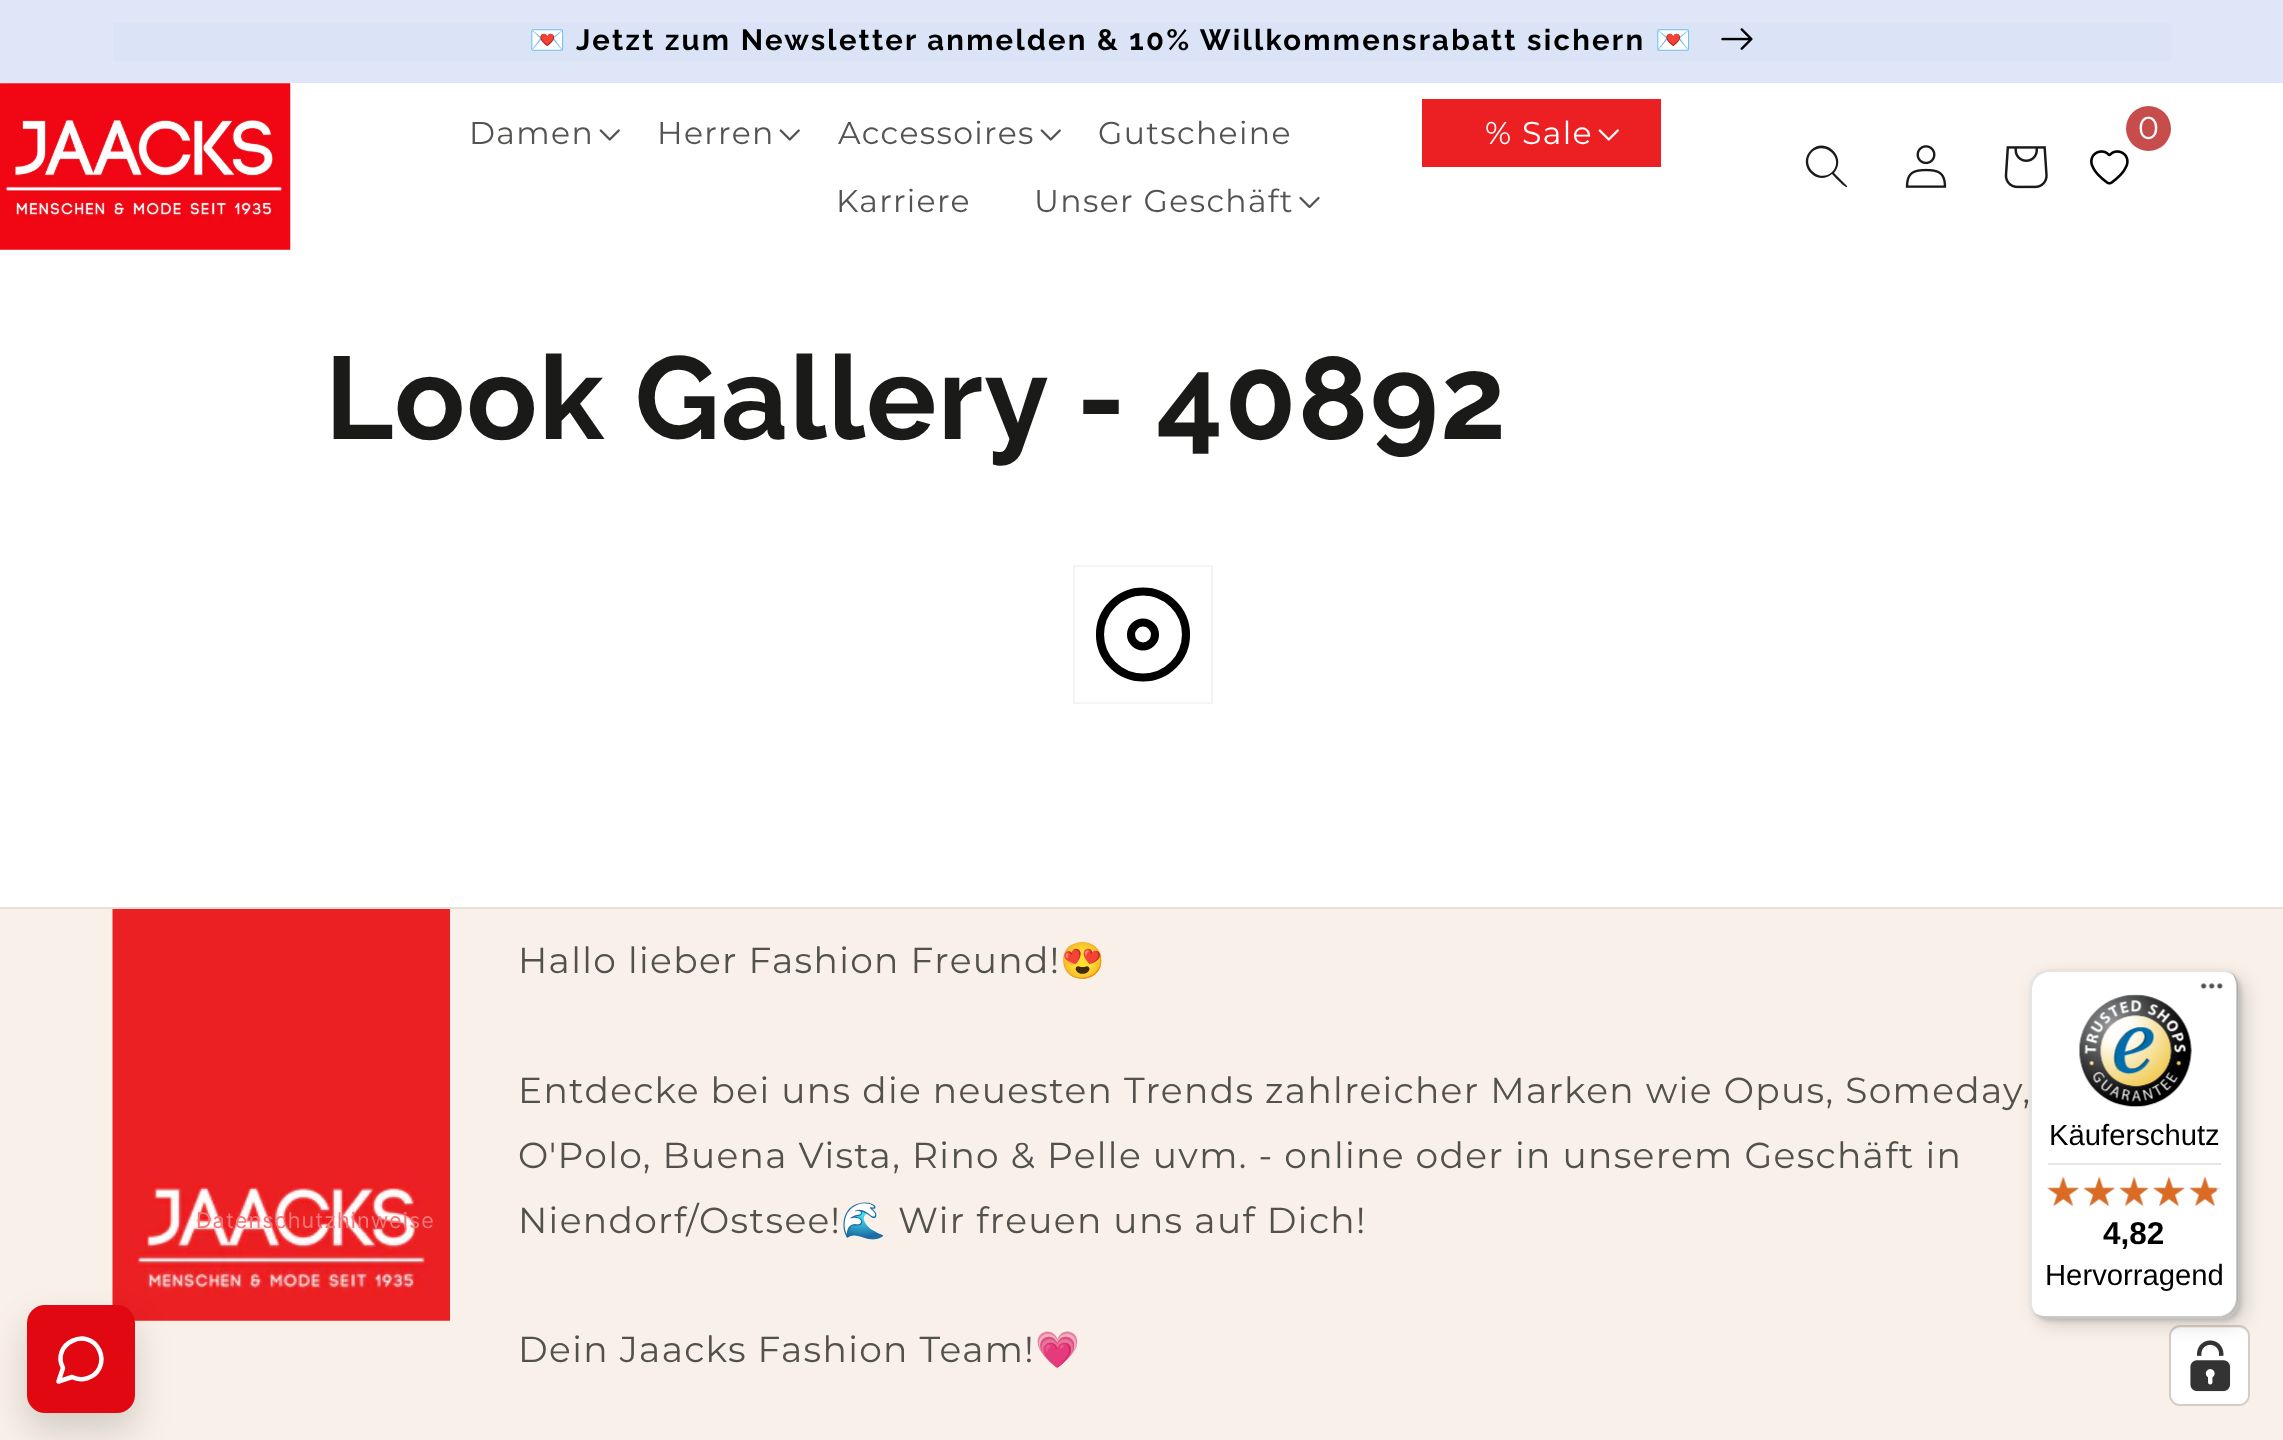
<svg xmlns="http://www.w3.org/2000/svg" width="2283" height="1440">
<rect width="100%" height="100%" fill="#fff"/>
<rect width="2283" height="83" fill="#dee6f7"/>
<rect x="113" y="23" width="2058" height="38" fill="#dbe4f6"/>
<text x="529" y="50" style="font-family:Noto Color Emoji;font-size:29.25px;font-weight:bold;letter-spacing:2.25px;fill:#000">💌</text>
<text x="576" y="50" style="font-family:Raleway;font-size:29.25px;font-weight:bold;letter-spacing:2.25px;fill:#000">Jetzt zum Newsletter anmelden &amp; 10% Willkommensrabatt sichern</text>
<text x="1655" y="50" style="font-family:Noto Color Emoji;font-size:29.25px;font-weight:bold;letter-spacing:2.25px;fill:#000">💌</text>
<image x="1721" y="28" width="32" height="22" href="media/1.png"/>
<image x="0" y="83" width="291" height="167" href="media/2.png"/>
<text x="469" y="144" style="font-family:Montserrat;font-size:31.5px;font-weight:100;letter-spacing:1.35px;fill:#535452">Damen</text>
<image x="599" y="129" width="21" height="12" href="media/3.png"/>
<text x="657" y="144" style="font-family:Montserrat;font-size:31.5px;font-weight:100;letter-spacing:1.35px;fill:#535452">Herren</text>
<image x="779" y="129" width="21" height="12" href="media/3.png"/>
<text x="838" y="144" style="font-family:Montserrat;font-size:31.5px;font-weight:100;letter-spacing:1.35px;fill:#535452">Accessoires</text>
<image x="1040" y="129" width="21" height="12" href="media/3.png"/>
<text x="1098" y="144" style="font-family:Montserrat;font-size:31.5px;font-weight:100;letter-spacing:1.35px;fill:#535452">Gutscheine</text>
<rect x="1422" y="99" width="239" height="68" fill="#ec2023"/>
<text x="1485" y="144" style="font-family:Montserrat;font-size:31.5px;font-weight:100;letter-spacing:1.35px;fill:#fff">% Sale</text>
<image x="1598" y="129" width="21" height="12" href="media/4.png"/>
<text x="836" y="212" style="font-family:Montserrat;font-size:31.5px;font-weight:100;letter-spacing:1.35px;fill:#535452">Karriere</text>
<text x="1034" y="212" style="font-family:Montserrat;font-size:31.5px;font-weight:100;letter-spacing:1.35px;fill:#535452">Unser Geschäft</text>
<image x="1299" y="196" width="21" height="13" href="media/5.png"/>
<image x="2090" y="150" width="39" height="35" href="media/6.png"/>
<circle cx="2148.5" cy="128.5" r="22.5" fill="#c74d4d"/>
<text x="2138" y="139" style="font-family:Montserrat;font-size:31.5px;font-weight:100;letter-spacing:1.35px;fill:#fff">0</text>
<path d="M1832 172c-13 12-32-7-20-20c13-12 33 7 20 20zm0 2c-15 13-36-9-21-24c14-14 37 7 23 23l13 13v1c-2 1-13-11-15-13z" fill="#1a1b18" fill-rule="evenodd"/>
<image x="1905" y="145" width="42" height="43" href="media/7.png"/>
<image x="2004" y="146" width="44" height="43" href="media/8.png"/>
<text x="325" y="439" style="font-family:Raleway;font-size:117px;font-weight:bold;letter-spacing:1.35px;fill:#1a1b18">Look Gallery - 40892</text>
<rect x="1074" y="566" width="138" height="137" fill="none" stroke="#f4f4f3" stroke-width="2"/>
<circle cx="1143" cy="634.5" r="43" fill="none" stroke="#000" stroke-width="8.1"/>
<circle cx="1143" cy="634.5" r="12" fill="none" stroke="#000" stroke-width="8.1"/>
<rect y="909" width="2283" height="531" fill="#f9f1e9"/>
<image x="112" y="909" width="338" height="412" href="media/9.png"/>
<text x="196" y="1228" style="font-family:Inter;font-size:21.6px;letter-spacing:1.1px;fill:#f27879">Datenschutzhinweise</text>
<rect x="25" y="1321" width="112" height="112" rx="20" fill="#00000024" filter="blur(17px)"/>
<rect x="27" y="1305" width="108" height="108" rx="18" fill="#e10812"/>
<path d="M72 1377c10 5 22.5 1 27.5-9c2.5-5.5 2.5-12 0-17.5c-11.5-25-49-6.5-36.5 17.5l-4.5 13.5z" fill="none" stroke="#fff" stroke-width="4.5" stroke-linecap="round" stroke-linejoin="round"/>
<rect y="907" width="2283" height="2" fill="#e7e0d8"/>
<text x="518" y="973" style="font-family:Montserrat;font-size:36px;font-weight:100;letter-spacing:1.35px;fill:#52514c">Hallo lieber Fashion Freund!</text>
<text x="1060" y="973" style="font-family:Noto Color Emoji;font-size:36px;letter-spacing:1.35px;fill:#52514c">😍</text>
<text x="518" y="1103" style="font-family:Montserrat;font-size:36px;font-weight:100;letter-spacing:1.35px;fill:#52514c">Entdecke bei uns die neuesten Trends zahlreicher Marken wie Opus, Someday,</text>
<text x="518" y="1168" style="font-family:Montserrat;font-size:36px;font-weight:100;letter-spacing:1.35px;fill:#52514c">O'Polo, Buena Vista, Rino &amp; Pelle uvm. - online oder in unserem Geschäft in</text>
<text x="518" y="1233" style="font-family:Montserrat;font-size:36px;font-weight:100;letter-spacing:1.35px;fill:#52514c">Niendorf/Ostsee!</text>
<text x="841" y="1233" style="font-family:Noto Color Emoji;font-size:36px;letter-spacing:1.35px;fill:#52514c">🌊</text>
<text x="898" y="1233" style="font-family:Montserrat;font-size:36px;font-weight:100;letter-spacing:1.35px;fill:#52514c">Wir freuen uns auf Dich!</text>
<text x="518" y="1362" style="font-family:Montserrat;font-size:36px;font-weight:100;letter-spacing:1.35px;fill:#52514c">Dein Jaacks Fashion Team!</text>
<text x="1035" y="1362" style="font-family:Noto Color Emoji;font-size:36px;letter-spacing:1.35px;fill:#52514c">💗</text>
<rect x="2170" y="1326" width="79" height="79" rx="10" fill="none" stroke="#d4cdc6" stroke-width="2"/>
<rect x="2171" y="1328" width="77" height="76" rx="9" fill="#fff"/>
<image x="2190" y="1340" width="41" height="52" href="media/22.png"/>
<rect x="2036" y="977" width="210" height="348" rx="18" fill="#00000026" filter="blur(9px)"/>
<rect x="2032" y="972" width="209" height="349" rx="18" fill="#00000026" filter="blur(2px)"/>
<rect x="2030" y="970" width="209" height="349" rx="18" fill="#fff"/>
<path d="M2050 972h173c4 0 8 2 12 4c-4-4-9-6-14-6h-173c-10 0-18 8-18 18v313c0 5 2 10 6 14c-2-4-4-8-4-12v-313c0-10 8-18 18-18z" fill="#0000001a"/>
<path d="M2034 1312c3 4 8 7 14 7h173c10 0 18-8 18-18v-313c0-7-4-13-9-16c4 3 6 8 6 14v312c0 10-8 18-18 18h-173c-4 0-8-1-11-4z" fill="#00000033"/>
<path d="M2034 1313c4 4 9 6 14 6h173c10 0 18-8 18-18v-313c0-5-2-10-6-14c2 4 4 8 4 12v313c0 10-8 18-18 18h-173c-4 0-8-2-12-4z" fill="#32323233"/>
<path d="M2034 1313c4 4 9 6 14 6h173c10 0 18-8 18-18v-313c0-5-2-10-5-13c2 3 4 7 4 12v312c0 10-8 18-18 18h-174c-4 0-8-2-12-4z" fill="#ffffff4d"/>
<image x="2200" y="983" width="23" height="7" href="media/10.png"/>
<image x="2079" y="994" width="113" height="113" href="media/11.png"/>
<text x="2049" y="1145" style="font-family:Liberation Sans;font-size:29.25px;fill:#000">Käuferschutz</text>
<rect x="2048" y="1163" width="173" height="2" fill="#e5e5e5"/>
<image x="2047" y="1177" width="32" height="29" href="media/17.png"/>
<image x="2047" y="1176" width="32" height="30" href="media/12.png"/>
<image x="2084" y="1177" width="31" height="29" href="media/18.png"/>
<image x="2083" y="1176" width="32" height="30" href="media/13.png"/>
<image x="2119" y="1177" width="30" height="29" href="media/19.png"/>
<image x="2119" y="1176" width="30" height="30" href="media/14.png"/>
<image x="2153" y="1177" width="32" height="29" href="media/20.png"/>
<image x="2153" y="1176" width="32" height="30" href="media/15.png"/>
<image x="2189" y="1177" width="32" height="29" href="media/21.png"/>
<image x="2189" y="1176" width="28" height="30" href="media/16.png"/>
<text x="2103" y="1244" style="font-family:Liberation Sans;font-size:31.5px;font-weight:bold;fill:#000">4,82</text>
<text x="2045" y="1285" style="font-family:Liberation Sans;font-size:29.25px;fill:#000">Hervorragend</text>
</svg>
